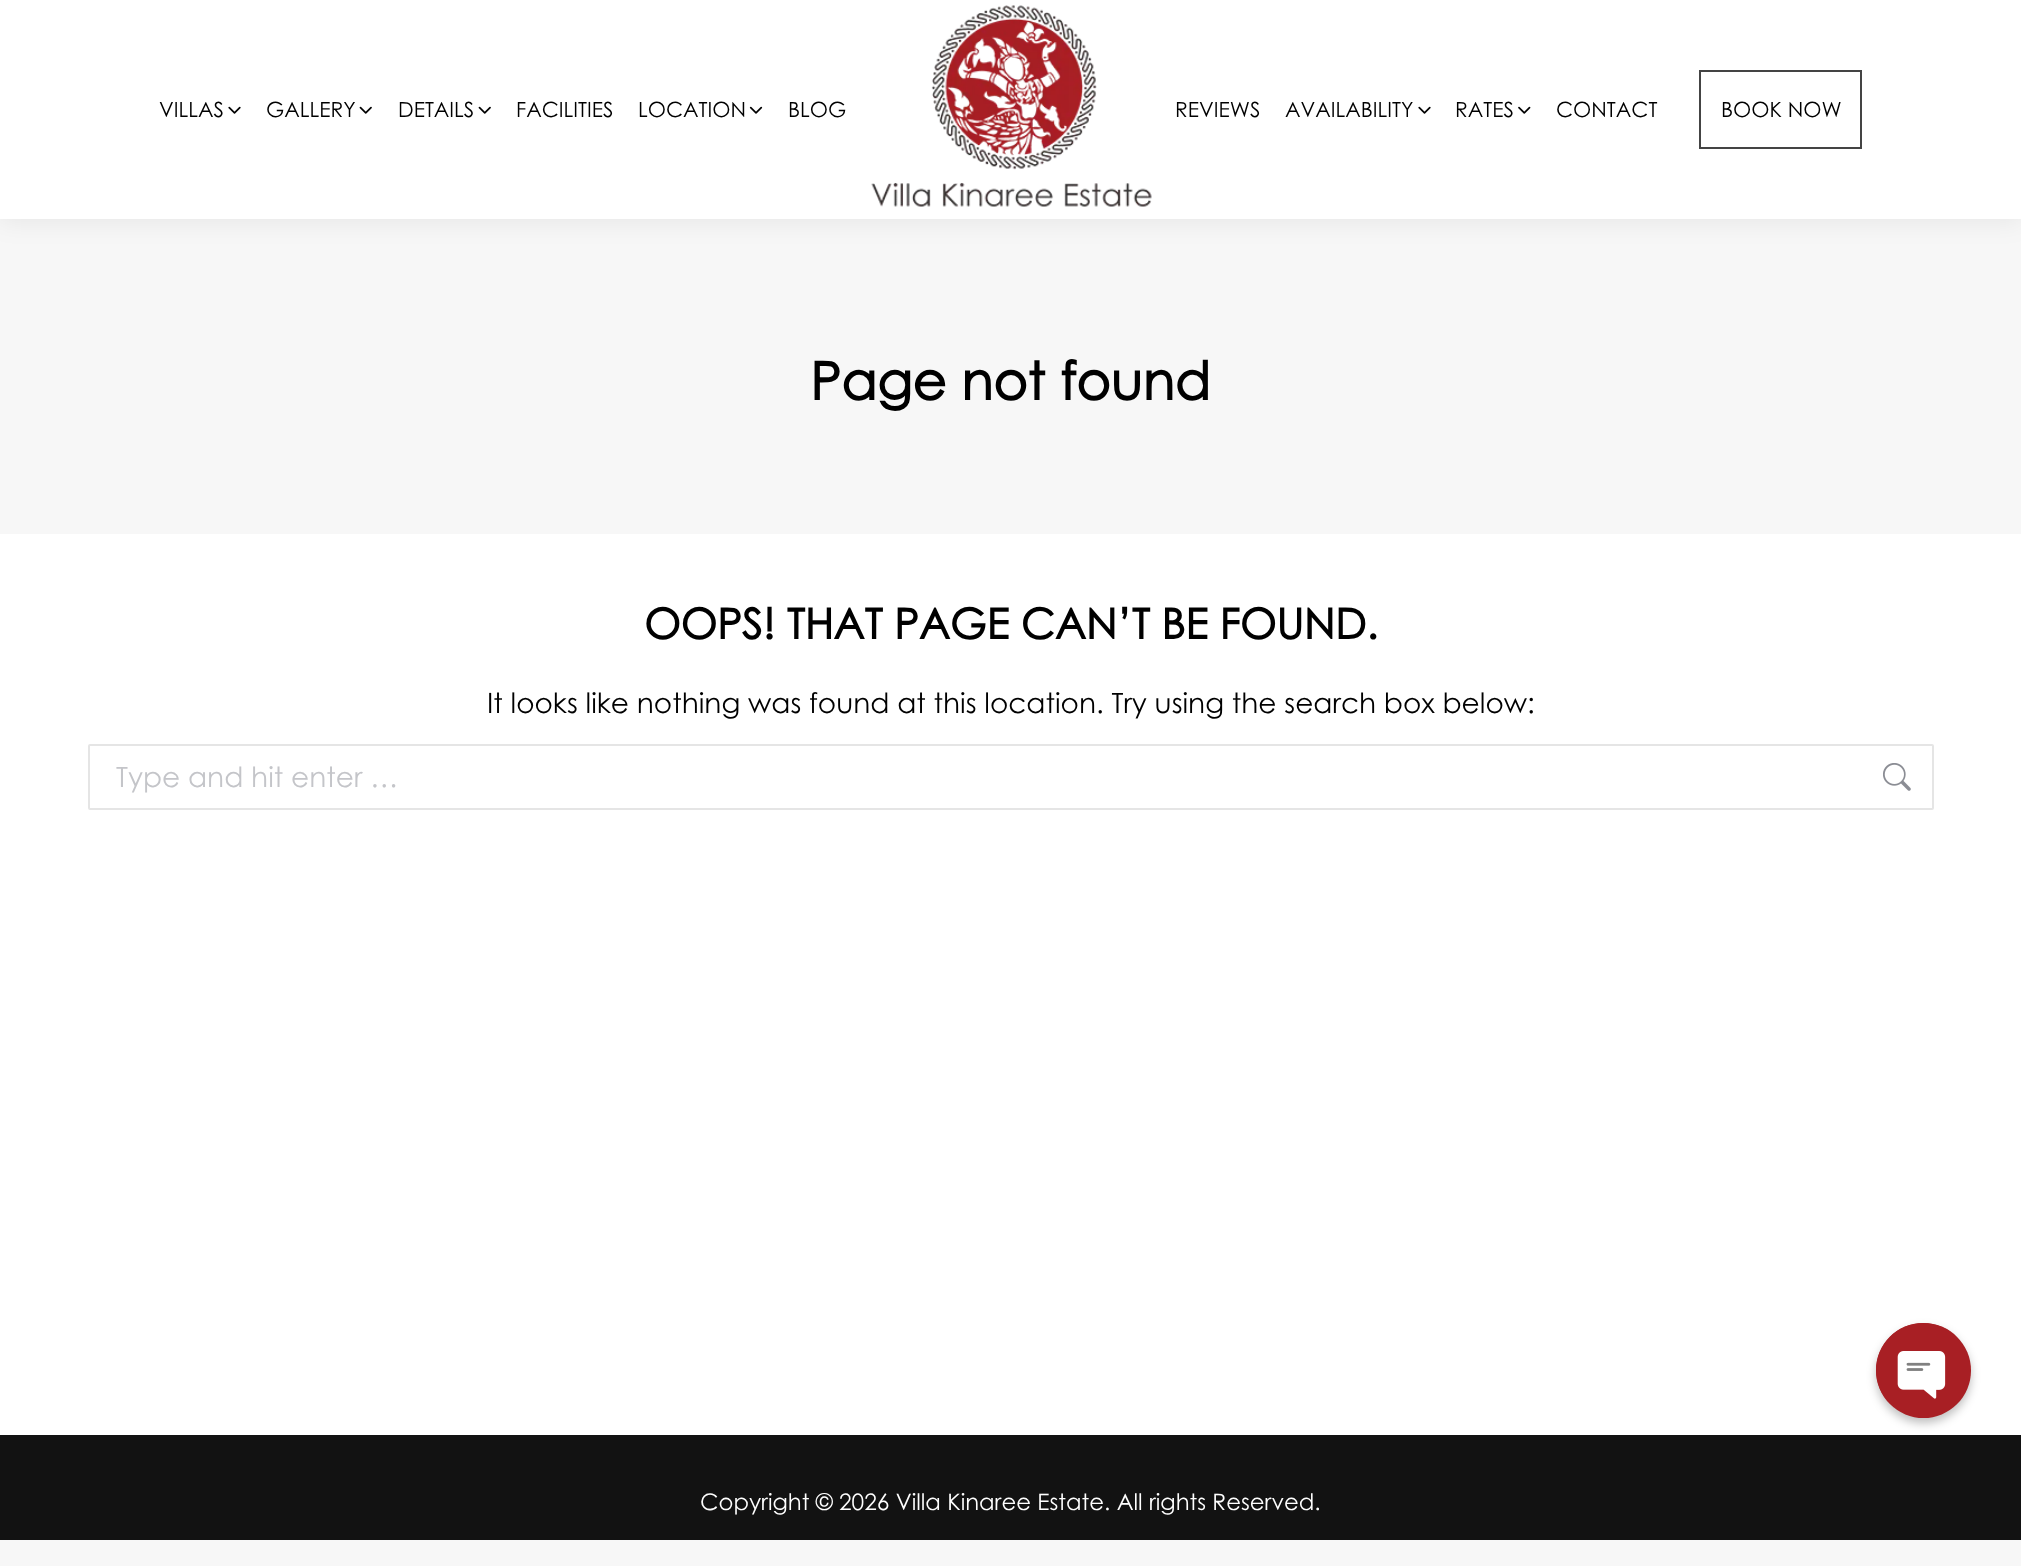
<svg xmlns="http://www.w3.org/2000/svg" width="2021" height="1566">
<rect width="100%" height="100%" fill="#f7f7f7"/>
<rect y="534" width="2021" height="901" fill="#fff"/>
<rect x="-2" y="-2" width="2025" height="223" fill="#00000012" filter="blur(13px)"/>
<rect width="2021" height="219" fill="#fff"/>
<text x="159" y="117" style="font-family:Century Gothic;font-size:21px;fill:#000">VILLAS</text>
<image x="228" y="106" width="13" height="8" href="media/1.png"/>
<text x="266" y="117" style="font-family:Century Gothic;font-size:21px;fill:#000">GALLERY</text>
<image x="359" y="106" width="13" height="8" href="media/2.png"/>
<text x="398" y="117" style="font-family:Century Gothic;font-size:21px;fill:#000">DETAILS</text>
<image x="478" y="106" width="13" height="8" href="media/2.png"/>
<text x="516" y="117" style="font-family:Century Gothic;font-size:21px;fill:#000">FACILITIES</text>
<text x="638" y="117" style="font-family:Century Gothic;font-size:21px;fill:#000">LOCATION</text>
<image x="749" y="106" width="14" height="8" href="media/3.png"/>
<text x="788" y="117" style="font-family:Century Gothic;font-size:21px;fill:#000">BLOG</text>
<image x="871" y="5" width="281" height="202" href="media/4.png"/>
<text x="1175" y="117" style="font-family:Century Gothic;font-size:21px;fill:#000">REVIEWS</text>
<text x="1285" y="117" style="font-family:Century Gothic;font-size:21px;fill:#000">AVAILABILITY</text>
<image x="1418" y="106" width="13" height="8" href="media/1.png"/>
<text x="1455" y="117" style="font-family:Century Gothic;font-size:21px;fill:#000">RATES</text>
<image x="1518" y="106" width="13" height="8" href="media/5.png"/>
<text x="1556" y="117" style="font-family:Century Gothic;font-size:21px;fill:#000">CONTACT</text>
<rect x="1700" y="71" width="161" height="77" fill="none" stroke="#444" stroke-width="2"/>
<text x="1721" y="117" style="font-family:Century Gothic;font-size:21px;fill:#000">BOOK NOW</text>
<text x="810" y="400" style="font-family:Century Gothic;font-size:52.5px;font-weight:bold;fill:#000">Page not found</text>
<text x="644" y="639" style="font-family:Century Gothic;font-size:42px;font-weight:bold;fill:#000">OOPS! THAT PAGE CAN’T BE FOUND.</text>
<text x="487" y="713" style="font-family:Century Gothic;font-size:28px;fill:#000">It looks like nothing was found at this location. Try using the search box below:</text>
<rect x="89" y="745" width="1844" height="64" rx="1" fill="none" stroke="#e5e5e5" stroke-width="2"/>
<text x="116" y="787" style="font-family:Century Gothic;font-size:28px;fill:#c4c5c9">Type and hit enter …</text>
<image x="1883" y="763" width="28" height="28" href="media/6.png"/>
<rect y="1435" width="2021" height="105" fill="#121212"/>
<text x="700" y="1510" style="font-family:Century Gothic;font-size:22.75px;fill:#fff">Copyright © 2026 Villa Kinaree Estate. All rights Reserved.</text>
<rect x="1876" y="1328" width="95" height="95" rx="47.5" fill="#00000040" filter="blur(5px)"/>
<circle cx="1923.5" cy="1370.5" r="47.5" fill="#a81f24"/>
<image x="1876" y="1323" width="75" height="76" href="media/7.png"/>
</svg>
